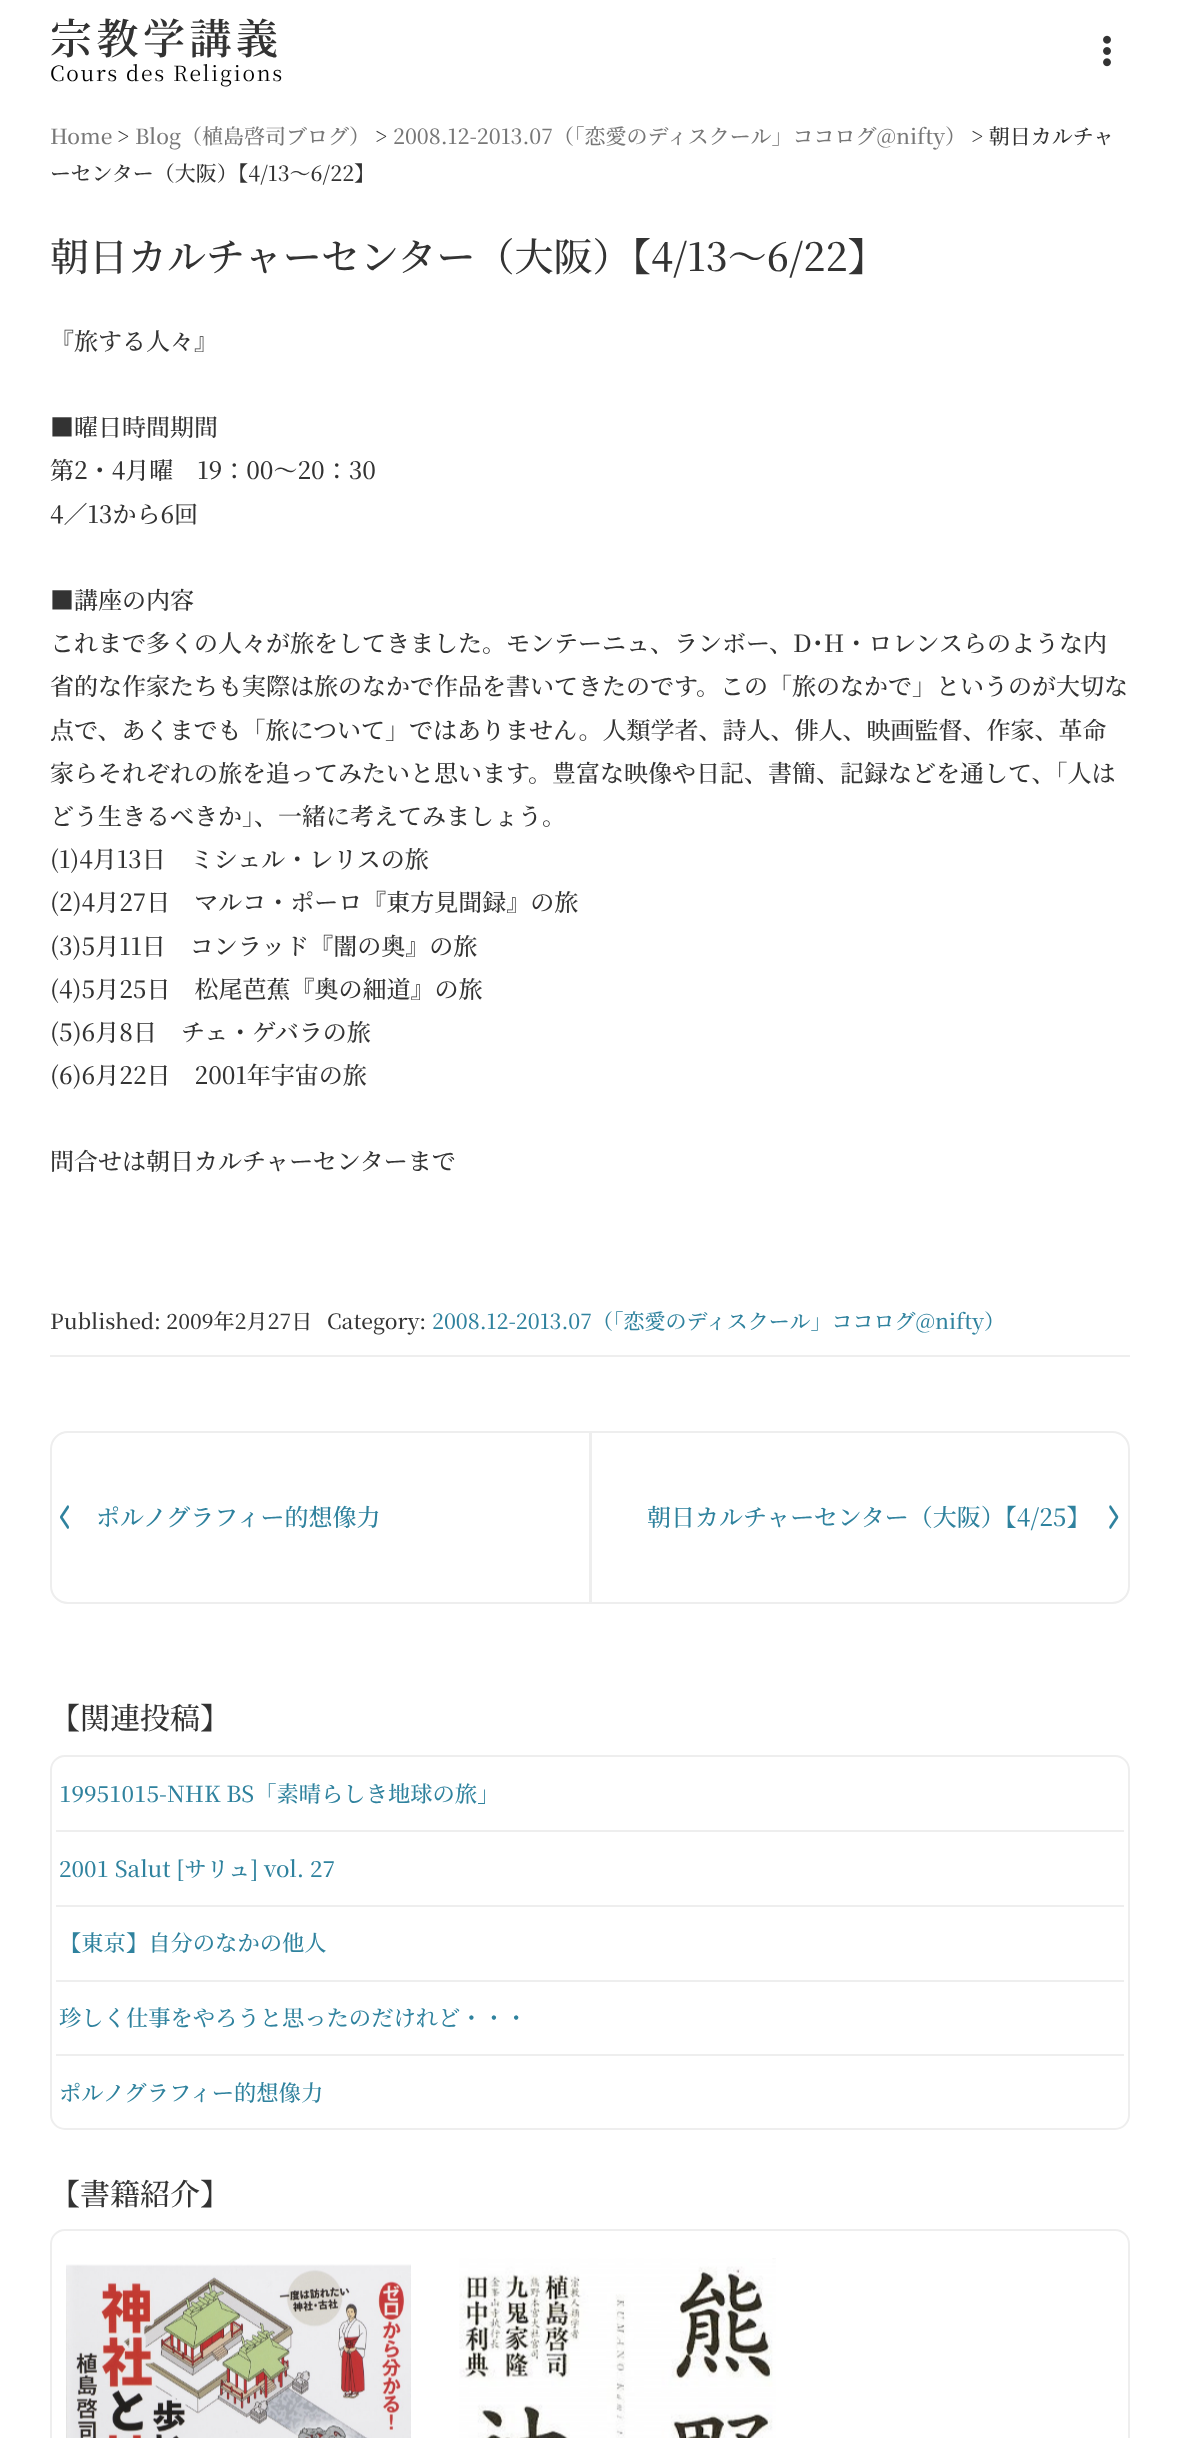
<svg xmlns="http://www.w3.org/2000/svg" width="1179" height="2438">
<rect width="100%" height="100%" fill="#fff"/>
<text x="50" y="54" style="font-family:Noto Serif JP;font-size:42px;font-weight:600;letter-spacing:4.5px;fill:#333">宗教学講義</text>
<text x="50" y="81" style="font-family:Noto Serif JP;font-size:21px;letter-spacing:1.75px;fill:#000">Cours des Religions</text>
<image x="1103" y="35" width="8" height="32" href="media/1.png"/>
<text x="50" y="144" style="font-family:Noto Serif JP;font-size:21px;font-weight:500;fill:#777">Home</text>
<text x="117" y="144" style="font-family:Noto Serif JP;font-size:21px;font-weight:500;fill:#333">&gt;</text>
<text x="135" y="144" style="font-family:Noto Serif JP;font-size:21px;font-weight:500;fill:#777">Blog（植島啓司ブログ）</text>
<text x="375" y="144" style="font-family:Noto Serif JP;font-size:21px;font-weight:500;fill:#333">&gt;</text>
<text x="393" y="144" style="font-family:Noto Serif JP;font-size:21px;font-weight:500;fill:#777">2008.12-2013.07（「恋愛のディスクール」ココログ@nifty）</text>
<text x="971" y="144" style="font-family:Noto Serif JP;font-size:21px;font-weight:500;fill:#333">&gt; 朝日カルチャ</text>
<text x="50" y="181" style="font-family:Noto Serif JP;font-size:21px;font-weight:500;fill:#333">ーセンター（大阪）【4/13～6/22】</text>
<text x="50" y="271" style="font-family:Noto Serif JP;font-size:39px;font-weight:500;fill:#333">朝日カルチャーセンター（大阪）【4/13～6/22】</text>
<text x="50" y="350" style="font-family:Noto Serif JP;font-size:24px;font-weight:500;fill:#333">『旅する人々』</text>
<text x="50" y="436" style="font-family:Noto Serif JP;font-size:24px;font-weight:500;fill:#333">■曜日時間期間</text>
<text x="50" y="479" style="font-family:Noto Serif JP;font-size:24px;font-weight:500;fill:#333">第2・4月曜　19：00～20：30</text>
<text x="50" y="523" style="font-family:Noto Serif JP;font-size:24px;font-weight:500;fill:#333">4／13から6回</text>
<text x="50" y="609" style="font-family:Noto Serif JP;font-size:24px;font-weight:500;fill:#333">■講座の内容</text>
<text x="50" y="652" style="font-family:Noto Serif JP;font-size:24px;font-weight:500;fill:#333">これまで多くの人々が旅をしてきました。モンテーニュ、ランボー、D･H・ロレンスらのような内</text>
<text x="50" y="695" style="font-family:Noto Serif JP;font-size:24px;font-weight:500;fill:#333">省的な作家たちも実際は旅のなかで作品を書いてきたのです。この「旅のなかで」というのが大切な</text>
<text x="50" y="739" style="font-family:Noto Serif JP;font-size:24px;font-weight:500;fill:#333">点で、あくまでも「旅について」ではありません。人類学者、詩人、俳人、映画監督、作家、革命</text>
<text x="50" y="782" style="font-family:Noto Serif JP;font-size:24px;font-weight:500;fill:#333">家らそれぞれの旅を追ってみたいと思います。豊富な映像や日記、書簡、記録などを通して、「人は</text>
<text x="50" y="825" style="font-family:Noto Serif JP;font-size:24px;font-weight:500;fill:#333">どう生きるべきか」、一緒に考えてみましょう。</text>
<text x="50" y="868" style="font-family:Noto Serif JP;font-size:24px;font-weight:500;fill:#333">(1)4月13日　ミシェル・レリスの旅</text>
<text x="50" y="911" style="font-family:Noto Serif JP;font-size:24px;font-weight:500;fill:#333">(2)4月27日　マルコ・ポーロ『東方見聞録』の旅</text>
<text x="50" y="955" style="font-family:Noto Serif JP;font-size:24px;font-weight:500;fill:#333">(3)5月11日　コンラッド『闇の奥』の旅</text>
<text x="50" y="998" style="font-family:Noto Serif JP;font-size:24px;font-weight:500;fill:#333">(4)5月25日　松尾芭蕉『奥の細道』の旅</text>
<text x="50" y="1041" style="font-family:Noto Serif JP;font-size:24px;font-weight:500;fill:#333">(5)6月8日　チェ・ゲバラの旅</text>
<text x="50" y="1084" style="font-family:Noto Serif JP;font-size:24px;font-weight:500;fill:#333">(6)6月22日　2001年宇宙の旅</text>
<text x="50" y="1170" style="font-family:Noto Serif JP;font-size:24px;font-weight:500;fill:#333">問合せは朝日カルチャーセンターまで</text>
<rect x="50" y="1355" width="1080" height="2" fill="#eee"/>
<text x="50" y="1329" style="font-family:Noto Serif JP;font-size:21px;font-weight:500;fill:#333">Published: 2009年2月27日</text>
<text x="327" y="1329" style="font-family:Noto Serif JP;font-size:21px;font-weight:500;fill:#333">Category:</text>
<text x="432" y="1329" style="font-family:Noto Serif JP;font-size:21px;font-weight:500;fill:#2f829e">2008.12-2013.07（「恋愛のディスクール」ココログ@nifty）</text>
<path d="M68 1432h522v171h-522c-9.5 0-17-7.5-17-17v-137c0-9.5 7.5-17 17-17z" fill="none" stroke="#eee" stroke-width="2"/>
<image x="60" y="1505" width="9" height="24" href="media/2.png"/>
<text x="96" y="1526" style="font-family:Noto Serif JP;font-size:24px;font-weight:500;fill:#2f829e">ポルノグラフィー的想像力</text>
<path d="M591 1432h521c9.5 0 17 7.5 17 17v137c0 9.5-7.5 17-17 17h-521z" fill="none" stroke="#eee" stroke-width="2"/>
<text x="647" y="1526" style="font-family:Noto Serif JP;font-size:24px;font-weight:500;fill:#2f829e">朝日カルチャーセンター（大阪）【4/25】</text>
<image x="1109" y="1505" width="10" height="24" href="media/3.png"/>
<text x="50" y="1729" style="font-family:Noto Serif JP;font-size:30px;font-weight:500;fill:#333">【関連投稿】</text>
<rect x="51" y="1756" width="1078" height="373" rx="14" fill="none" stroke="#eee" stroke-width="2"/>
<rect x="56" y="1830" width="1068" height="2" fill="#eee"/>
<text x="59" y="1802" style="font-family:Noto Serif JP;font-size:22.3px;font-weight:500;fill:#2f829e">19951015-NHK BS「素晴らしき地球の旅」</text>
<rect x="56" y="1905" width="1068" height="2" fill="#eee"/>
<text x="59" y="1877" style="font-family:Noto Serif JP;font-size:22.3px;font-weight:500;fill:#2f829e">2001 Salut [サリュ] vol. 27</text>
<rect x="56" y="1980" width="1068" height="2" fill="#eee"/>
<text x="59" y="1951" style="font-family:Noto Serif JP;font-size:22.3px;font-weight:500;fill:#2f829e">【東京】自分のなかの他人</text>
<rect x="56" y="2054" width="1068" height="2" fill="#eee"/>
<text x="59" y="2026" style="font-family:Noto Serif JP;font-size:22.3px;font-weight:500;fill:#2f829e">珍しく仕事をやろうと思ったのだけれど・・・</text>
<text x="59" y="2101" style="font-family:Noto Serif JP;font-size:22.3px;font-weight:500;fill:#2f829e">ポルノグラフィー的想像力</text>
<text x="50" y="2205" style="font-family:Noto Serif JP;font-size:30px;font-weight:500;fill:#333">【書籍紹介】</text>
<rect x="51" y="2230" width="1078" height="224" rx="14" fill="none" stroke="#eee" stroke-width="2"/>
<image x="66" y="2264" width="345" height="174" href="media/4.png"/>
<image x="459" y="2258" width="317" height="180" href="media/5.png"/>
</svg>
